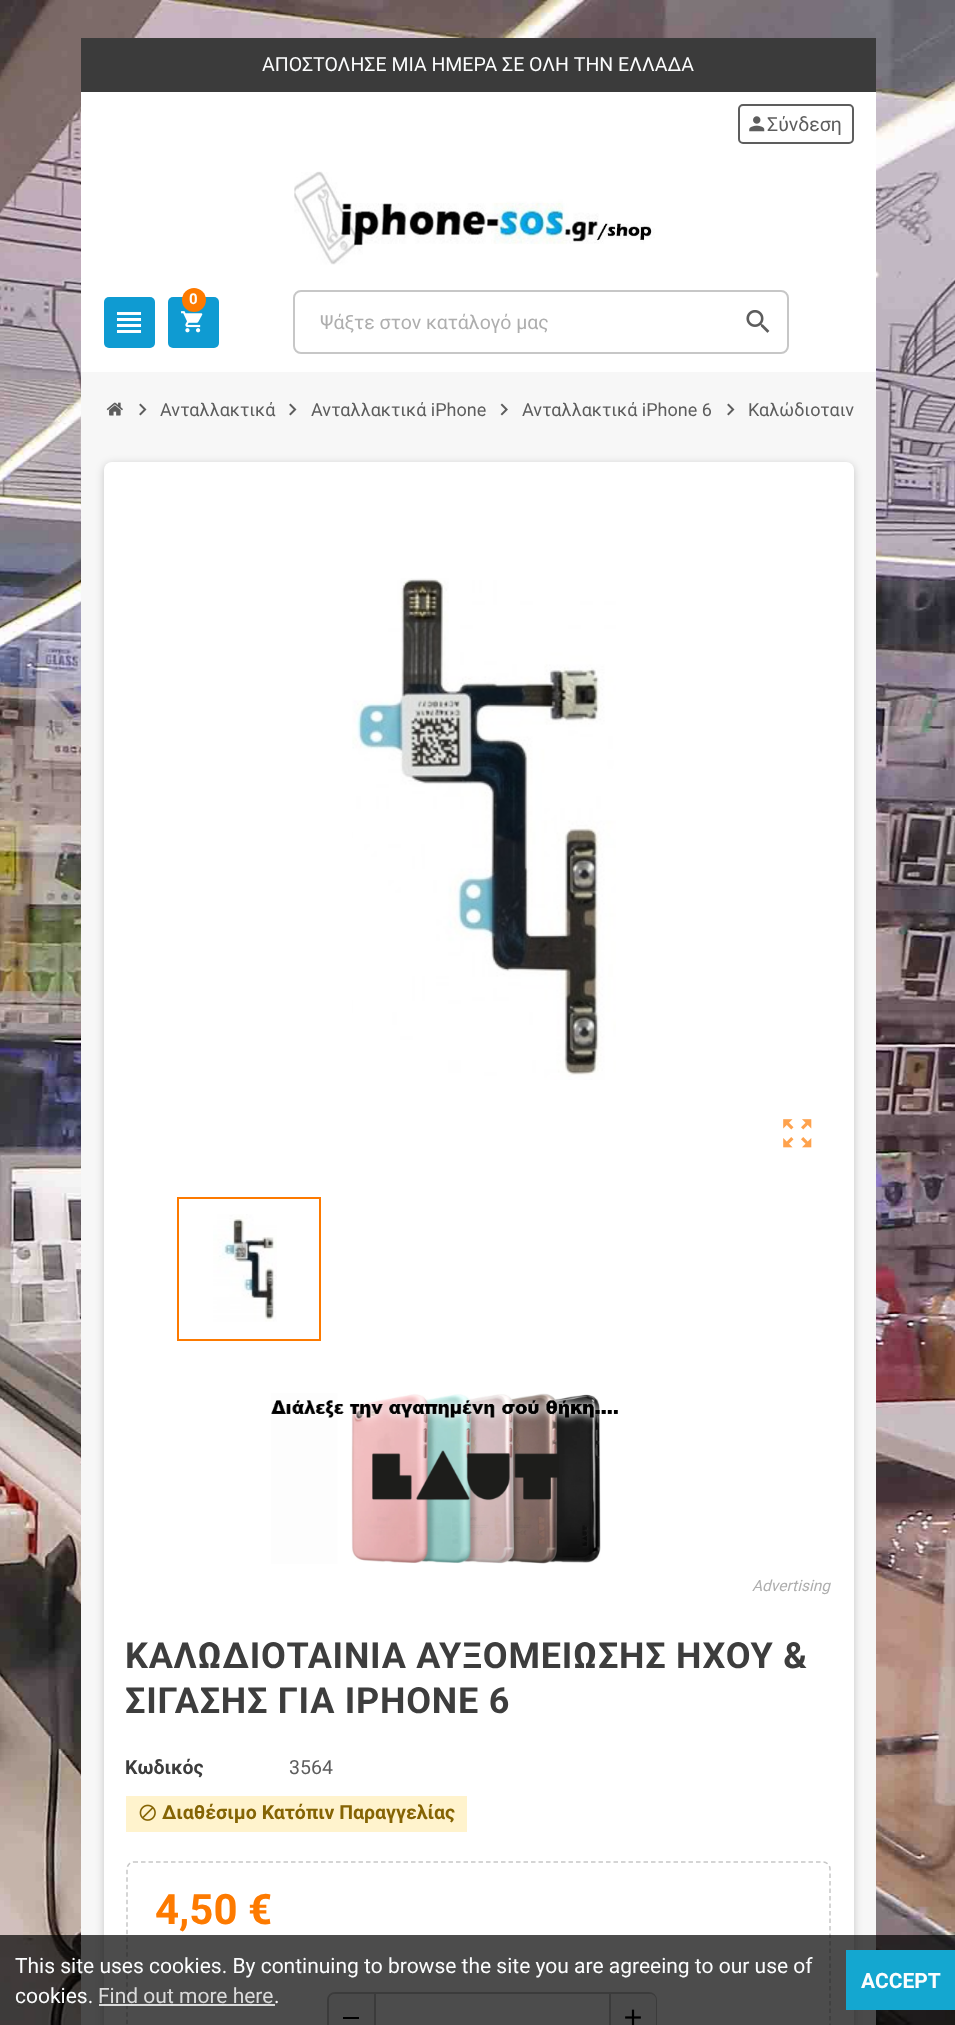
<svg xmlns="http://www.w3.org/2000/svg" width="955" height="2025">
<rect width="100%" height="100%" fill="#fff"/>
<image x="0" y="0" width="955" height="2025" href="media/1.png"/>
<rect x="81" y="92" width="795" height="280" fill="#fff"/>
<rect x="81" y="38" width="795" height="54" fill="#3b3b3b"/>
<text x="262" y="71" style="font-family:Roboto;font-size:19.5px;fill:#fcfdfe">ΑΠΟΣΤΟΛΗΣΕ ΜΙΑ ΗΜΕΡΑ ΣΕ ΟΛΗ ΤΗΝ ΕΛΛΑΔΑ</text>
<rect x="104" y="297" width="51" height="51" rx="5" fill="#0f9bd2"/>
<image x="116" y="312" width="26" height="21" href="media/2.png"/>
<rect x="739" y="105" width="114" height="38" rx="4" fill="none" stroke="#5d5d5d" stroke-width="2"/>
<image x="749" y="116" width="16" height="16" href="media/3.png"/>
<text x="767" y="131" style="font-family:Roboto;font-size:19.5px;fill:#5d5d5d">Σύνδεση</text>
<rect x="168" y="297" width="51" height="51" rx="5" fill="#0f9bd2"/>
<image x="181" y="311" width="22" height="22" href="media/4.png"/>
<circle cx="194" cy="300" r="12" fill="#fd7a00"/>
<text x="189" y="304" style="font-family:Roboto;font-size:15px;font-weight:bold;fill:#fcfdfe">0</text>
<rect x="294" y="291" width="494" height="62" rx="7" fill="none" stroke="#c7c7c7" stroke-width="2"/>
<text x="320" y="329" style="font-family:Roboto;font-size:19.5px;fill:#aeaeae">Ψάξτε στον κατάλογό μας</text>
<image x="746" y="310" width="24" height="23" href="media/5.png"/>
<image x="294" y="171" width="361" height="94" href="media/6.png"/>
<rect x="81" y="372" width="795" height="1653" fill="#f7f7f7"/>
<image x="106" y="402" width="17" height="14" href="media/7.png"/>
<image x="139" y="403" width="8" height="13" href="media/8.png"/>
<text x="160" y="416" style="font-family:Roboto;font-size:18px;fill:#5d5d5d">Ανταλλακτικά</text>
<image x="289" y="403" width="8" height="13" href="media/8.png"/>
<text x="311" y="416" style="font-family:Roboto;font-size:18px;fill:#5d5d5d">Ανταλλακτικά iPhone</text>
<image x="500" y="403" width="8" height="13" href="media/9.png"/>
<text x="522" y="416" style="font-family:Roboto;font-size:18px;fill:#5d5d5d">Ανταλλακτικά iPhone 6</text>
<image x="727" y="403" width="8" height="13" href="media/8.png"/>
<text x="748" y="416" style="font-family:Roboto;font-size:18px;fill:#5d5d5d">Καλώδιοταιν</text>
<rect x="104" y="464" width="750" height="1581" rx="8" fill="#00000033" filter="blur(4px)"/>
<rect x="104" y="462" width="750" height="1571" rx="8" fill="#fff"/>
<image x="352" y="578" width="264" height="502" href="media/10.png"/>
<image x="783" y="1119" width="29" height="29" href="media/11.png"/>
<rect x="178" y="1198" width="142" height="142" fill="none" stroke="#fd7a00" stroke-width="2"/>
<image x="213" y="1214" width="64" height="108" href="media/12.png"/>
<image x="271" y="1393" width="347" height="171" href="media/13.png"/>
<text x="752" y="1591" style="font-family:Roboto;font-size:15.5px;font-style:italic;fill:#aeaeae">Advertising</text>
<text x="125" y="1668" style="font-family:'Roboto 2';font-size:36px;font-weight:bold;letter-spacing:0.75px;fill:#3d3d3d">ΚΑΛΩΔΙΟΤΑΙΝΙΑ ΑΥΞΟΜΕΙΩΣΗΣ ΗΧΟΥ &amp;</text>
<text x="125" y="1713" style="font-family:'Roboto 2';font-size:36px;font-weight:bold;letter-spacing:0.75px;fill:#3d3d3d">ΣΙΓΑΣΗΣ ΓΙΑ IPHONE 6</text>
<text x="125" y="1774" style="font-family:Roboto;font-size:19.5px;font-weight:bold;fill:#3d3d3d">Κωδικός</text>
<text x="289" y="1774" style="font-family:Roboto;font-size:19.5px;fill:#5d5d5d">3564</text>
<rect x="126" y="1796" width="341" height="36" fill="#fff3cd"/>
<image x="139" y="1804" width="17" height="17" href="media/14.png"/>
<text x="162" y="1819" style="font-family:Roboto;font-size:19.5px;font-weight:bold;fill:#856404">Διαθέσιμο Κατόπιν Παραγγελίας</text>
<path d="M133.5 1862h690c3.5 0 6.5 3.5 6.5 7v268.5c0 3.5-3 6.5-6.5 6.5h-690c-3.5 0-6.5-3-6.5-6.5v-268.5c0-3.5 3-7 6.5-7z" fill="none" stroke="#c7c7c7" stroke-width="1.5" stroke-dasharray="4.5 3"/>
<text x="155" y="1924" style="font-family:Roboto;font-size:42px;font-weight:bold;fill:#fd7a00">4,50 €</text>
<rect x="328" y="1993" width="328" height="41" rx="7" fill="none" stroke="#c7c7c7" stroke-width="2"/>
<path d="M335 1994h39v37h-39c-3.5 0-6-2.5-6-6v-25c0-3.5 2.5-6 6-6z" fill="#f7f7f7"/>
<rect x="343" y="2017" width="16" height="2" fill="#000"/>
<rect x="609" y="1994" width="2" height="31" fill="#c7c7c7"/>
<rect x="374" y="1994" width="2" height="31" fill="#c7c7c7"/>
<path d="M611 1994h39c3.5 0 6 2.5 6 6v25c0 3.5-2.5 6-6 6h-39z" fill="#f7f7f7"/>
<image x="625" y="2009" width="16" height="16" href="media/15.png"/>
<rect y="1935" width="955" height="90" fill="#000000b3"/>
<text x="15" y="1973" style="font-family:Roboto;font-size:21px;fill:#fcfdfe">This site uses cookies. By continuing to browse the site you are agreeing to our use of</text>
<text x="15" y="2003" style="font-family:Roboto;font-size:21px;fill:#fcfdfe">cookies.</text>
<text x="98" y="2003" style="font-family:Roboto;font-size:21px;fill:#dbdbdb">Find out more here</text>
<rect x="99" y="2004" width="176" height="2" fill="#ffffffcc"/>
<text x="274" y="2003" style="font-family:Roboto;font-size:21px;fill:#fcfdfe">.</text>
<rect x="846" y="1950" width="109" height="60" fill="#14a7d0"/>
<text x="861" y="1988" style="font-family:Roboto;font-size:21px;font-weight:bold;fill:#fcfdfe">ACCEPT</text>
</svg>
